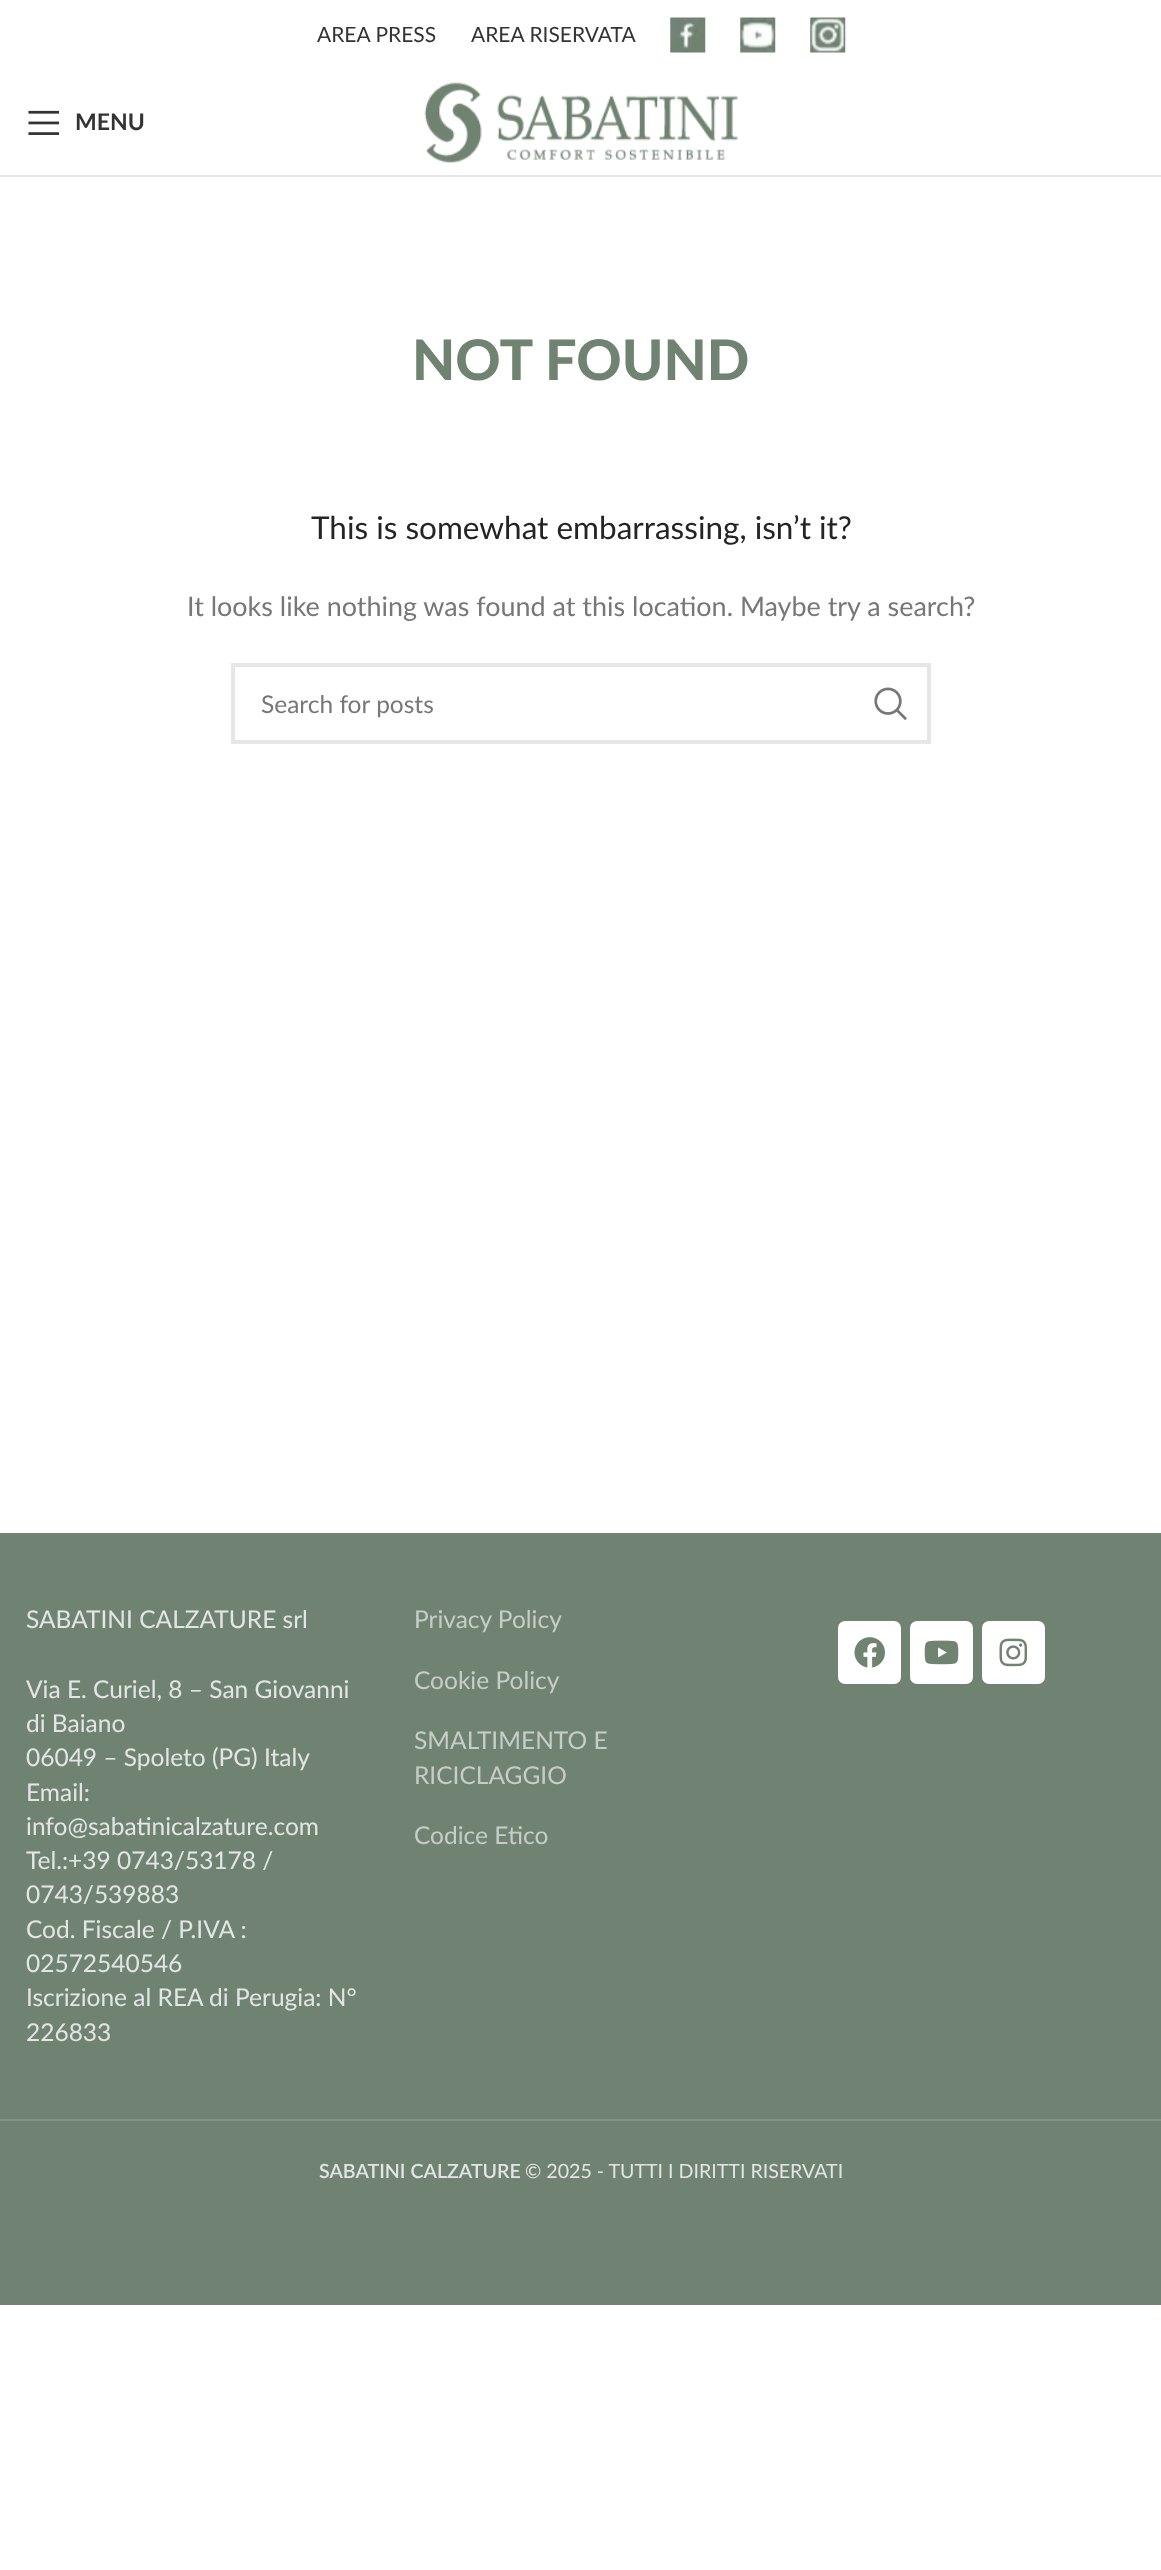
<svg xmlns="http://www.w3.org/2000/svg" width="1161" height="2570">
<rect width="100%" height="100%" fill="#fff"/>
<text x="317" y="42" style="font-family:Lato;font-size:21px;fill:#333">AREA PRESS</text>
<text x="471" y="42" style="font-family:Lato;font-size:21px;fill:#333">AREA RISERVATA</text>
<image x="670" y="17" width="36" height="36" href="media/1.png"/>
<image x="740" y="17" width="36" height="36" href="media/2.png"/>
<image x="810" y="17" width="36" height="36" href="media/3.png"/>
<rect y="175" width="1161" height="2" fill="#e6e6e6"/>
<image x="28" y="110" width="32" height="25" href="media/4.png"/>
<text x="75" y="130" style="font-family:Lato;font-size:23px;font-weight:bold;fill:#333">MENU</text>
<image x="424" y="82" width="314" height="81" href="media/5.png"/>
<text x="412" y="380" style="font-family:Lato;font-size:56px;font-weight:900;fill:#708372">NOT FOUND</text>
<text x="311" y="539" style="font-family:Lato;font-size:31.5px;fill:#242424">This is somewhat embarrassing, isn’t it?</text>
<text x="187" y="616" style="font-family:Lato;font-size:26.95px;fill:#777">It looks like nothing was found at this location. Maybe try a search?</text>
<rect x="233" y="665" width="696" height="77" fill="none" stroke="#e6e6e6" stroke-width="4"/>
<text x="261" y="713" style="font-family:Lato;font-size:24.5px;fill:#777">Search for posts</text>
<image x="874" y="687" width="33" height="34" href="media/6.png"/>
<rect y="1533" width="1161" height="772" fill="#708372"/>
<text x="26" y="1628" style="font-family:Lato;font-size:24.5px;fill:#e2e6e3">SABATINI CALZATURE srl</text>
<text x="26" y="1698" style="font-family:Lato;font-size:24.5px;fill:#e2e6e3">Via E. Curiel, 8 – San Giovanni</text>
<text x="26" y="1732" style="font-family:Lato;font-size:24.5px;fill:#e2e6e3">di Baiano</text>
<text x="26" y="1766" style="font-family:Lato;font-size:24.5px;fill:#e2e6e3">06049 – Spoleto (PG) Italy</text>
<text x="26" y="1801" style="font-family:Lato;font-size:24.5px;fill:#e2e6e3">Email:</text>
<text x="26" y="1835" style="font-family:Lato;font-size:24.5px;fill:#e2e6e3">info@sabatinicalzature.com</text>
<text x="26" y="1869" style="font-family:Lato;font-size:24.5px;fill:#e2e6e3">Tel.:+39 0743/53178 /</text>
<text x="26" y="1903" style="font-family:Lato;font-size:24.5px;fill:#e2e6e3">0743/539883</text>
<text x="26" y="1938" style="font-family:Lato;font-size:24.5px;fill:#e2e6e3">Cod. Fiscale / P.IVA :</text>
<text x="26" y="1972" style="font-family:Lato;font-size:24.5px;fill:#e2e6e3">02572540546</text>
<text x="26" y="2006" style="font-family:Lato;font-size:24.5px;fill:#e2e6e3">Iscrizione al REA di Perugia: N°</text>
<text x="26" y="2041" style="font-family:Lato;font-size:24.5px;fill:#e2e6e3">226833</text>
<text x="414" y="1628" style="font-family:Lato;font-size:24.5px;fill:#c6cdc7">Privacy Policy</text>
<text x="414" y="1689" style="font-family:Lato;font-size:24.5px;fill:#c6cdc7">Cookie Policy</text>
<text x="414" y="1749" style="font-family:Lato;font-size:24.5px;fill:#c6cdc7">SMALTIMENTO E</text>
<text x="414" y="1784" style="font-family:Lato;font-size:24.5px;fill:#c6cdc7">RICICLAGGIO</text>
<text x="414" y="1844" style="font-family:Lato;font-size:24.5px;fill:#c6cdc7">Codice Etico</text>
<rect x="838" y="1621" width="63" height="63" rx="7" fill="#fff"/>
<image x="854" y="1637" width="31" height="31" href="media/7.png"/>
<rect x="910" y="1621" width="63" height="63" rx="7" fill="#fff"/>
<image x="924" y="1640" width="35" height="25" href="media/8.png"/>
<rect x="982" y="1621" width="63" height="63" rx="7" fill="#fff"/>
<image x="999" y="1638" width="29" height="29" href="media/9.png"/>
<rect y="2119" width="1161" height="2" fill="#859687"/>
<text x="319" y="2178" style="font-family:Lato;font-size:19.6px;font-weight:600;fill:#e2e6e3">SABATINI CALZATURE</text>
<text x="525" y="2178" style="font-family:Lato;font-size:19.6px;fill:#e2e6e3">© 2025 - TUTTI I DIRITTI RISERVATI</text>
</svg>
